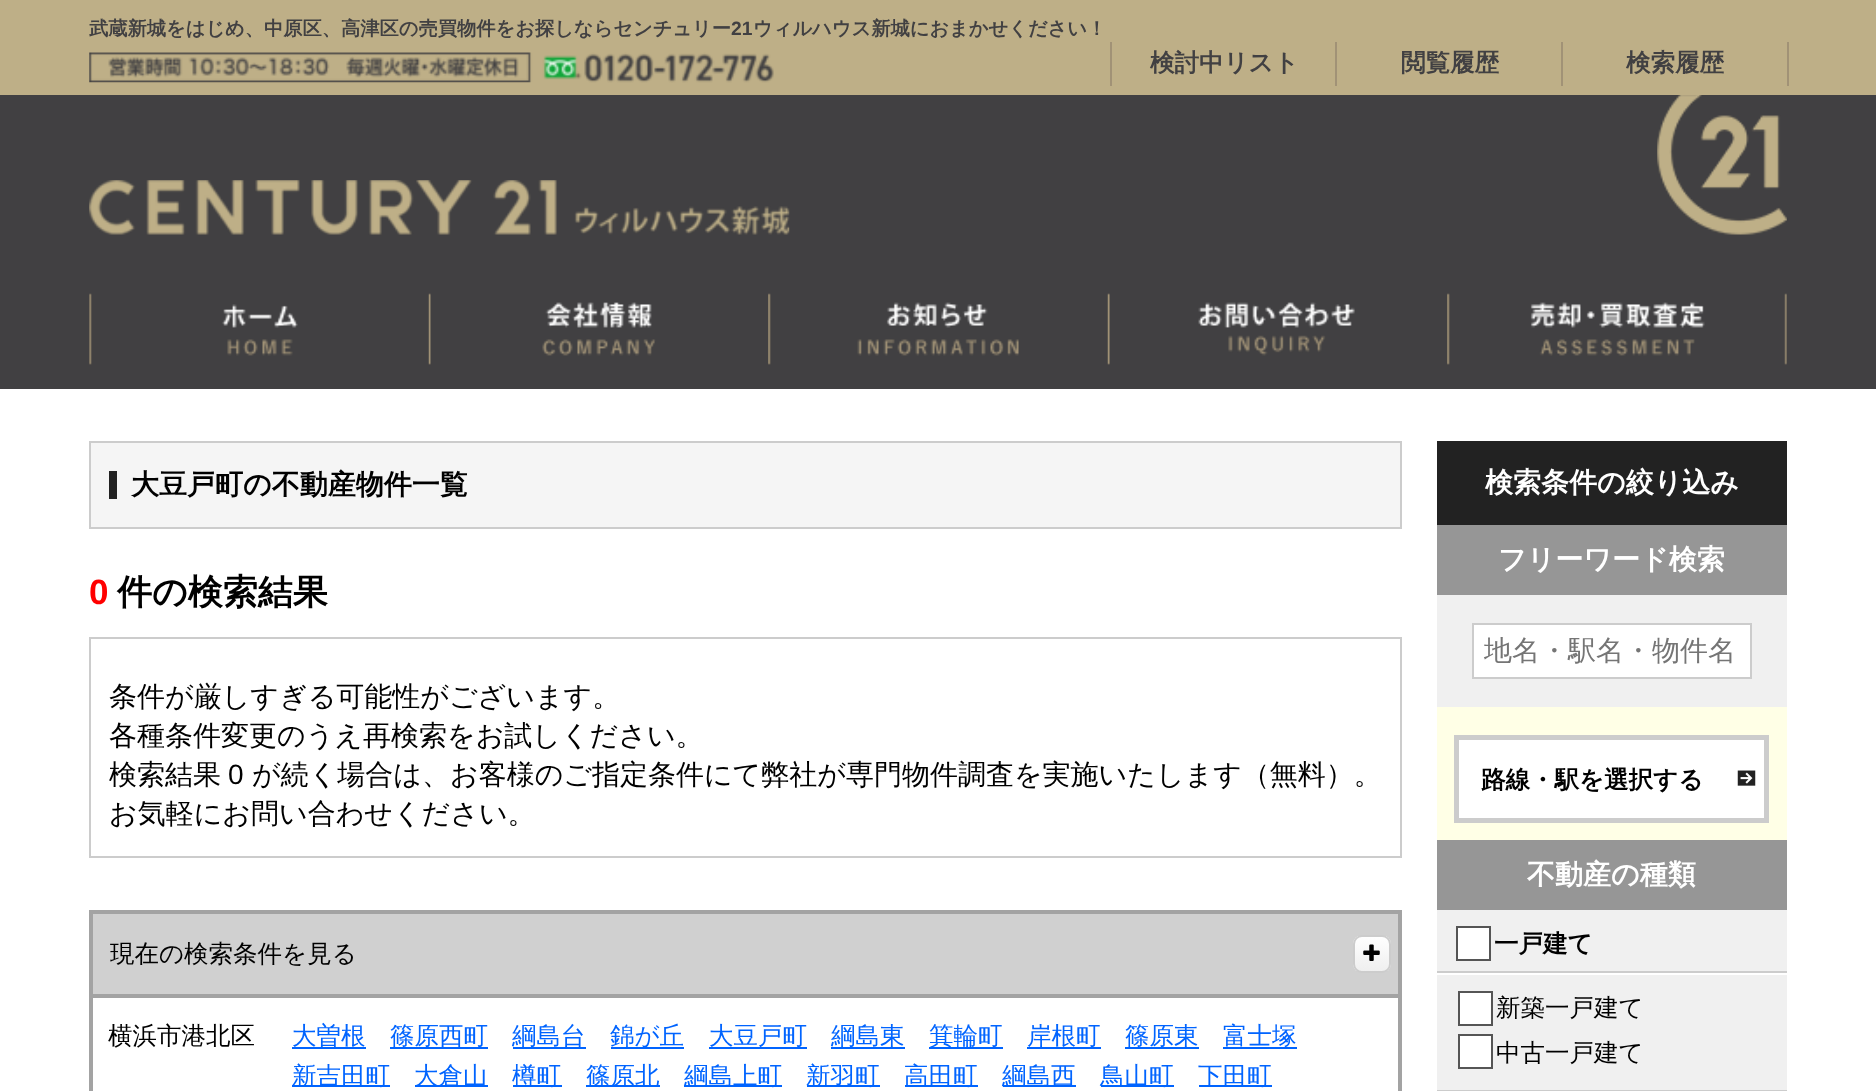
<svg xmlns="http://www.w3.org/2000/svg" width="1876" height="1091">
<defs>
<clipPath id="clip1"><rect x="1353" y="935" width="38" height="38" rx="9"/></clipPath>
<linearGradient id="g1" gradientUnits="userSpaceOnUse" x1="1372" y1="936" x2="1372" y2="971"><stop offset="0" stop-color="#fff"/><stop offset="1" stop-color="#efefef"/></linearGradient>
</defs>
<rect width="100%" height="100%" fill="#fff"/>
<rect y="95" width="1876" height="294" fill="#414042"/>
<rect width="1876" height="95" fill="#beaf87"/>
<text x="89" y="35" style="font-family:WenQuanYi Zen Hei;font-size:19.25px;font-weight:bold;fill:#414042">武蔵新城をはじめ、中原区、高津区の売買物件をお探しならセンチュリー</text>
<text x="731" y="35" style="font-family:Liberation Sans;font-size:19.25px;font-weight:bold;fill:#414042">21</text>
<text x="753" y="35" style="font-family:WenQuanYi Zen Hei;font-size:19.25px;font-weight:bold;fill:#414042">ウィルハウス新城におまかせください！</text>
<image x="89" y="52" width="685" height="31" href="media/1.png"/>
<rect x="1110" y="42" width="2" height="44" fill="#a19276"/>
<text x="1150" y="71" style="font-family:WenQuanYi Zen Hei;font-size:24.5px;font-weight:bold;fill:#414042">検討中リスト</text>
<rect x="1335" y="42" width="2" height="44" fill="#a19276"/>
<text x="1401" y="71" style="font-family:WenQuanYi Zen Hei;font-size:24.5px;font-weight:bold;fill:#414042">閲覧履歴</text>
<rect x="1787" y="42" width="2" height="44" fill="#a19276"/>
<rect x="1561" y="42" width="2" height="44" fill="#a19276"/>
<text x="1626" y="71" style="font-family:WenQuanYi Zen Hei;font-size:24.5px;font-weight:bold;fill:#414042">検索履歴</text>
<image x="89" y="180" width="701" height="55" href="media/2.png"/>
<image x="1657" y="95" width="130" height="140" href="media/3.png"/>
<image x="89" y="293" width="209" height="72" href="media/4.png"/>
<image x="428" y="293" width="228" height="72" href="media/5.png"/>
<image x="768" y="293" width="251" height="72" href="media/6.png"/>
<image x="1107" y="293" width="248" height="72" href="media/7.png"/>
<image x="1447" y="293" width="340" height="72" href="media/8.png"/>
<rect x="90" y="442" width="1311" height="86" fill="#f5f5f5" stroke="#ccc" stroke-width="2"/>
<rect x="109" y="471" width="8" height="28" fill="#222"/>
<text x="131" y="494" style="font-family:WenQuanYi Zen Hei;font-size:28px;font-weight:bold;fill:#000">大豆戸町の不動産物件一覧</text>
<text x="89" y="604" style="font-family:Liberation Sans;font-size:35px;font-weight:bold;fill:#f00">0</text>
<text x="117" y="604" style="font-family:WenQuanYi Zen Hei;font-size:35px;font-weight:bold;fill:#000">件の検索結果</text>
<rect x="90" y="638" width="1311" height="219" fill="none" stroke="#ccc" stroke-width="2"/>
<text x="109" y="706" style="font-family:WenQuanYi Zen Hei;font-size:28px;font-weight:500;fill:#000">条件が厳しすぎる可能性がございます。</text>
<text x="109" y="745" style="font-family:WenQuanYi Zen Hei;font-size:28px;font-weight:500;fill:#000">各種条件変更のうえ再検索をお試しください。</text>
<text x="109" y="784" style="font-family:WenQuanYi Zen Hei;font-size:28px;font-weight:500;fill:#000">検索結果</text>
<text x="228" y="784" style="font-family:Liberation Sans;font-size:28px;fill:#000">0</text>
<text x="252" y="784" style="font-family:WenQuanYi Zen Hei;font-size:28px;font-weight:500;fill:#000">が続く場合は、お客様のご指定条件にて弊社が専門物件調査を実施いたします（無料）。</text>
<text x="109" y="823" style="font-family:WenQuanYi Zen Hei;font-size:28px;font-weight:500;fill:#000">お気軽にお問い合わせください。</text>
<rect x="91" y="912" width="1309" height="84" fill="none" stroke="#a3a3a3" stroke-width="4"/>
<rect x="93" y="914" width="1305" height="80" fill="#d0d0d0"/>
<text x="110" y="962" style="font-family:WenQuanYi Zen Hei;font-size:24.5px;font-weight:500;fill:#000">現在の検索条件を見る</text>
<g clip-path="url(#clip1)">
<rect x="1353" y="936" width="38" height="35" fill="url(#g1)"/>
</g>
<rect x="1354" y="936" width="36" height="36" rx="8" fill="none" stroke="#ccc" stroke-width="2"/>
<image x="1363" y="944" width="17" height="17" href="media/9.png"/>
<rect x="1398" y="998" width="4" height="93" fill="#a3a3a3"/>
<rect x="89" y="998" width="4" height="93" fill="#a3a3a3"/>
<text x="108" y="1044" style="font-family:WenQuanYi Zen Hei;font-size:24.5px;font-weight:500;fill:#000">横浜市港北区</text>
<rect x="292" y="1047" width="74" height="2" fill="#0064ff"/>
<text x="292" y="1044" style="font-family:WenQuanYi Zen Hei;font-size:24.5px;font-weight:500;fill:#0064ff">大曽根</text>
<rect x="390" y="1047" width="98" height="2" fill="#0064ff"/>
<text x="390" y="1044" style="font-family:WenQuanYi Zen Hei;font-size:24.5px;font-weight:500;fill:#0064ff">篠原西町</text>
<rect x="513" y="1047" width="73" height="2" fill="#0064ff"/>
<text x="512" y="1044" style="font-family:WenQuanYi Zen Hei;font-size:24.5px;font-weight:500;fill:#0064ff">綱島台</text>
<rect x="611" y="1047" width="73" height="2" fill="#0064ff"/>
<text x="610" y="1044" style="font-family:WenQuanYi Zen Hei;font-size:24.5px;font-weight:500;fill:#0064ff">錦が丘</text>
<rect x="709" y="1047" width="98" height="2" fill="#0064ff"/>
<text x="709" y="1044" style="font-family:WenQuanYi Zen Hei;font-size:24.5px;font-weight:500;fill:#0064ff">大豆戸町</text>
<rect x="831" y="1047" width="74" height="2" fill="#0064ff"/>
<text x="831" y="1044" style="font-family:WenQuanYi Zen Hei;font-size:24.5px;font-weight:500;fill:#0064ff">綱島東</text>
<rect x="929" y="1047" width="74" height="2" fill="#0064ff"/>
<text x="929" y="1044" style="font-family:WenQuanYi Zen Hei;font-size:24.5px;font-weight:500;fill:#0064ff">箕輪町</text>
<rect x="1027" y="1047" width="74" height="2" fill="#0064ff"/>
<text x="1027" y="1044" style="font-family:WenQuanYi Zen Hei;font-size:24.5px;font-weight:500;fill:#0064ff">岸根町</text>
<rect x="1125" y="1047" width="74" height="2" fill="#0064ff"/>
<text x="1125" y="1044" style="font-family:WenQuanYi Zen Hei;font-size:24.5px;font-weight:500;fill:#0064ff">篠原東</text>
<rect x="1223" y="1047" width="74" height="2" fill="#0064ff"/>
<text x="1223" y="1044" style="font-family:WenQuanYi Zen Hei;font-size:24.5px;font-weight:500;fill:#0064ff">富士塚</text>
<rect x="292" y="1085" width="98" height="2" fill="#0064ff"/>
<text x="292" y="1084" style="font-family:WenQuanYi Zen Hei;font-size:24.5px;font-weight:500;fill:#0064ff">新吉田町</text>
<rect x="415" y="1085" width="73" height="2" fill="#0064ff"/>
<text x="414" y="1084" style="font-family:WenQuanYi Zen Hei;font-size:24.5px;font-weight:500;fill:#0064ff">大倉山</text>
<rect x="513" y="1085" width="49" height="2" fill="#0064ff"/>
<text x="512" y="1084" style="font-family:WenQuanYi Zen Hei;font-size:24.5px;font-weight:500;fill:#0064ff">樽町</text>
<rect x="586" y="1085" width="74" height="2" fill="#0064ff"/>
<text x="586" y="1084" style="font-family:WenQuanYi Zen Hei;font-size:24.5px;font-weight:500;fill:#0064ff">篠原北</text>
<rect x="684" y="1085" width="98" height="2" fill="#0064ff"/>
<text x="684" y="1084" style="font-family:WenQuanYi Zen Hei;font-size:24.5px;font-weight:500;fill:#0064ff">綱島上町</text>
<rect x="807" y="1085" width="73" height="2" fill="#0064ff"/>
<text x="806" y="1084" style="font-family:WenQuanYi Zen Hei;font-size:24.5px;font-weight:500;fill:#0064ff">新羽町</text>
<rect x="905" y="1085" width="73" height="2" fill="#0064ff"/>
<text x="904" y="1084" style="font-family:WenQuanYi Zen Hei;font-size:24.5px;font-weight:500;fill:#0064ff">高田町</text>
<rect x="1003" y="1085" width="73" height="2" fill="#0064ff"/>
<text x="1002" y="1084" style="font-family:WenQuanYi Zen Hei;font-size:24.5px;font-weight:500;fill:#0064ff">綱島西</text>
<rect x="1101" y="1085" width="73" height="2" fill="#0064ff"/>
<text x="1100" y="1084" style="font-family:WenQuanYi Zen Hei;font-size:24.5px;font-weight:500;fill:#0064ff">鳥山町</text>
<rect x="1199" y="1085" width="73" height="2" fill="#0064ff"/>
<text x="1198" y="1084" style="font-family:WenQuanYi Zen Hei;font-size:24.5px;font-weight:500;fill:#0064ff">下田町</text>
<rect x="1437" y="441" width="350" height="84" fill="#222"/>
<text x="1485" y="492" style="font-family:WenQuanYi Zen Hei;font-size:28px;font-weight:bold;fill:#fff">検索条件の絞り込み</text>
<rect x="1437" y="595" width="350" height="112" fill="#f0f0f0"/>
<rect x="1437" y="525" width="350" height="70" fill="#969696"/>
<text x="1498" y="569" style="font-family:WenQuanYi Zen Hei;font-size:28px;font-weight:bold;fill:#fff">フリーワード検索</text>
<rect x="1473" y="624" width="278" height="54" fill="#fff" stroke="#ccc" stroke-width="2"/>
<text x="1484" y="660" style="font-family:WenQuanYi Zen Hei;font-size:28px;font-weight:500;fill:#757575">地名・駅名・物件名</text>
<rect x="1437" y="707" width="350" height="133" fill="#ffffe6"/>
<rect x="1456.5" y="737.5" width="310" height="83" fill="#fff" stroke="#ccc" stroke-width="5"/>
<text x="1481" y="788" style="font-family:WenQuanYi Zen Hei;font-size:24.5px;font-weight:bold;fill:#000">路線・駅を選択する</text>
<image x="1737" y="770" width="19" height="16" href="media/10.png"/>
<rect x="1437" y="910" width="350" height="180" fill="#f0f0f0"/>
<rect x="1437" y="840" width="350" height="70" fill="#969696"/>
<text x="1527" y="884" style="font-family:WenQuanYi Zen Hei;font-size:28px;font-weight:bold;fill:#fff">不動産の種類</text>
<rect x="1457" y="927" width="33" height="33" fill="#fff" stroke="#555" stroke-width="2"/>
<text x="1494" y="952" style="font-family:WenQuanYi Zen Hei;font-size:24.5px;font-weight:bold;fill:#000">一戸建て</text>
<rect x="1437" y="971" width="350" height="2" fill="#ccc"/>
<rect x="1437" y="973" width="350" height="2" fill="#fff"/>
<rect x="1459" y="992" width="33" height="33" fill="#fff" stroke="#555" stroke-width="2"/>
<text x="1496" y="1016" style="font-family:WenQuanYi Zen Hei;font-size:24.5px;font-weight:500;fill:#000">新築一戸建て</text>
<rect x="1459" y="1035" width="33" height="33" fill="#fff" stroke="#555" stroke-width="2"/>
<text x="1496" y="1061" style="font-family:WenQuanYi Zen Hei;font-size:24.5px;font-weight:500;fill:#000">中古一戸建て</text>
<rect x="1437" y="1090" width="350" height="1" fill="#ccc"/>
</svg>
